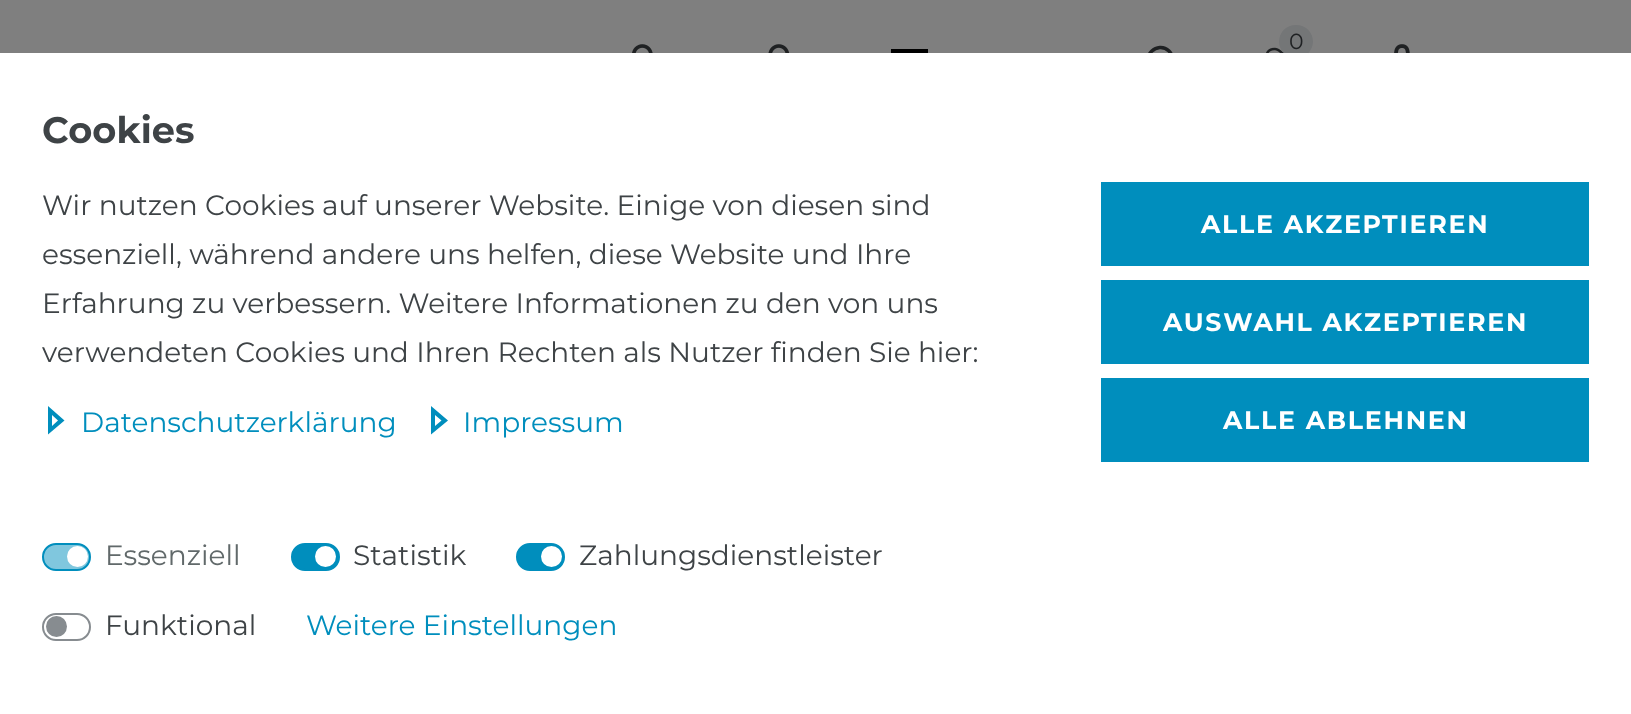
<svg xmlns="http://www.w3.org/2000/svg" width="1631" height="714">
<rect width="100%" height="100%" fill="#fff"/>
<image x="632" y="44" width="21" height="9" href="media/1.png"/>
<image x="768" y="44" width="22" height="9" href="media/2.png"/>
<rect x="891" y="49" width="37" height="4" fill="#000"/>
<path d="M1151.5 68.5c-11.5-11.5 6-28.5 17.5-17.5c11 11.5-6 29-17.5 17.5z" fill="none" stroke="#3e4346" stroke-width="3.5"/>
<image x="1266" y="47" width="18" height="6" href="media/3.png"/>
<rect x="1279" y="25" width="34" height="33" rx="16.5" fill="#e9ecef"/>
<text x="1289" y="49" style="font-family:Montserrat;font-size:22px;fill:#3e4346">0</text>
<image x="1394" y="44" width="16" height="9" href="media/4.png"/>
<rect x="-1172.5" y="-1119.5" width="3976" height="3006" fill="none" stroke="#00000080" stroke-width="2345"/>
<rect x="1146" y="53" width="162" height="21" fill="#fff"/>
<text x="42" y="143" style="font-family:Montserrat;font-size:36.75px;font-weight:bold;fill:#3e4346">Cookies</text>
<text x="42" y="215" style="font-family:Montserrat;font-size:28px;fill:#3e4346">Wir nutzen Cookies auf unserer Website. Einige von diesen sind</text>
<text x="42" y="264" style="font-family:Montserrat;font-size:28px;fill:#3e4346">essenziell, während andere uns helfen, diese Website und Ihre</text>
<text x="42" y="313" style="font-family:Montserrat;font-size:28px;fill:#3e4346">Erfahrung zu verbessern. Weitere Informationen zu den von uns</text>
<text x="42" y="362" style="font-family:Montserrat;font-size:28px;fill:#3e4346">verwendeten Cookies und Ihren Rechten als Nutzer finden Sie hier:</text>
<path d="M64.5 420.5l-16.5 14v-28.5zm-12.5 5.5l6-5.5l-6-5.5z" fill="#008ebd"/>
<text x="81" y="432" style="font-family:Montserrat;font-size:28px;fill:#008ebd">Datenschutzerklärung</text>
<path d="M448 420.5l-17 14v-28.5zm-13 5.5l6.5-5.5l-6.5-5.5z" fill="#008ebd"/>
<text x="463" y="432" style="font-family:Montserrat;font-size:28px;fill:#008ebd">Impressum</text>
<rect x="43" y="544" width="47" height="26" rx="13" fill="#80c7de" stroke="#008ebd" stroke-width="2"/>
<text x="105" y="565" style="font-family:Montserrat;font-size:28px;fill:#61696a">Essenziell</text>
<circle cx="77.5" cy="556.5" r="10.5" fill="#fff"/>
<rect x="292" y="544" width="47" height="26" rx="13" fill="#008ebd" stroke="#008ebd" stroke-width="2"/>
<text x="353" y="565" style="font-family:Montserrat;font-size:28px;fill:#3e4346">Statistik</text>
<circle cx="325.5" cy="556.5" r="10.5" fill="#fff"/>
<rect x="517" y="544" width="47" height="26" rx="13" fill="#008ebd" stroke="#008ebd" stroke-width="2"/>
<text x="579" y="565" style="font-family:Montserrat;font-size:28px;fill:#3e4346">Zahlungsdienstleister</text>
<circle cx="551.5" cy="556.5" r="10.5" fill="#fff"/>
<rect x="43" y="614" width="47" height="26" rx="13" fill="none" stroke="#878c90" stroke-width="2"/>
<text x="105" y="635" style="font-family:Montserrat;font-size:28px;fill:#3e4346">Funktional</text>
<circle cx="56.5" cy="626.5" r="10.5" fill="#878c90"/>
<text x="306" y="635" style="font-family:Montserrat;font-size:28px;fill:#008ebd">Weitere Einstellungen</text>
<rect x="1101" y="182" width="488" height="84" fill="#008ebd"/>
<text x="1201" y="233" style="font-family:Montserrat;font-size:25.25px;font-weight:bold;letter-spacing:1.75px;fill:#fff">ALLE AKZEPTIEREN</text>
<rect x="1101" y="280" width="488" height="84" fill="#008ebd"/>
<text x="1163" y="331" style="font-family:Montserrat;font-size:25.25px;font-weight:bold;letter-spacing:1.75px;fill:#fff">AUSWAHL AKZEPTIEREN</text>
<rect x="1101" y="378" width="488" height="84" fill="#008ebd"/>
<text x="1223" y="429" style="font-family:Montserrat;font-size:25.25px;font-weight:bold;letter-spacing:1.75px;fill:#fff">ALLE ABLEHNEN</text>
</svg>
